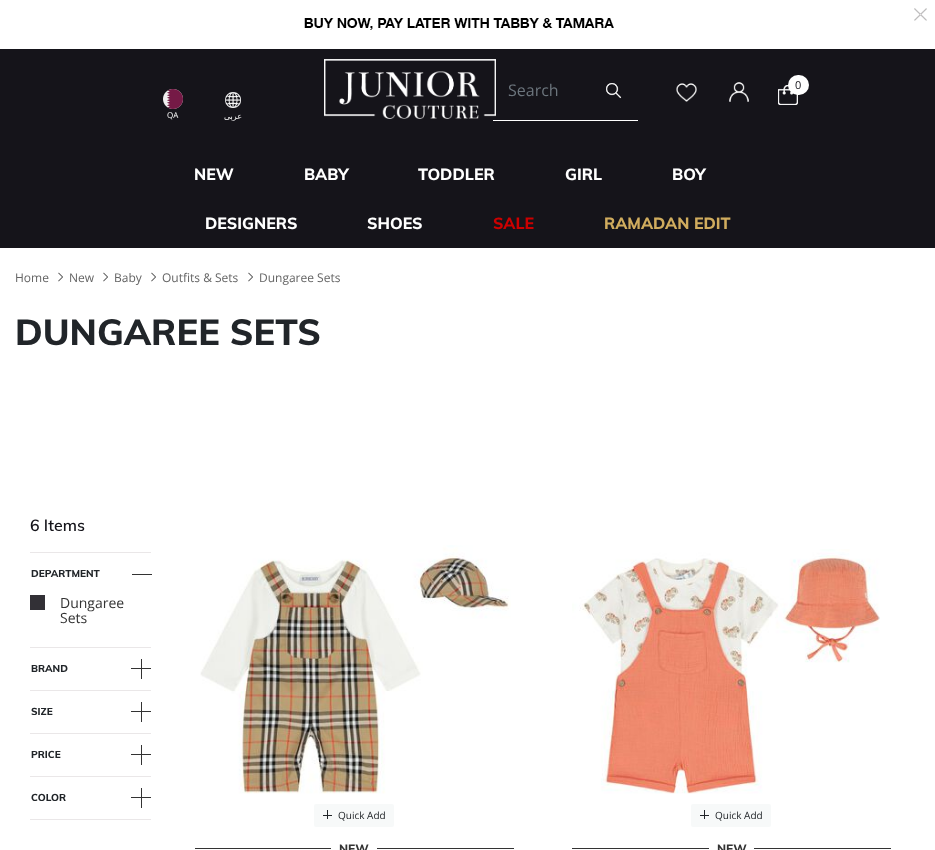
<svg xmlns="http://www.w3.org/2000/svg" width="935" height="850">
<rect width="100%" height="100%" fill="#fff"/>
<image x="914" y="8" width="13" height="13" href="media/1.png"/>
<image x="304" y="18" width="310" height="12" href="media/2.png"/>
<rect y="49" width="935" height="199" fill="#15141a"/>
<image x="324" y="59" width="172" height="60" href="media/3.png"/>
<rect x="493" y="120" width="145" height="1" fill="#fff"/>
<text x="508" y="96" style="font-family:Open Sans;font-size:16px;fill:#6c757d">Search</text>
<image x="606" y="83" width="16" height="16" href="media/4.png"/>
<image x="676" y="83" width="21" height="19" href="media/5.png"/>
<image x="729" y="82" width="20" height="20" href="media/6.png"/>
<image x="778" y="85" width="20" height="20" href="media/7.png"/>
<rect x="788" y="75" width="21" height="20" rx="10" fill="#fff"/>
<text x="795" y="89" style="font-family:Open Sans;font-size:11px;fill:#15141a">0</text>
<image x="163" y="89" width="20" height="20" href="media/8.png"/>
<text x="167" y="118" style="font-family:Open Sans;font-size:8px;fill:#fff">QA</text>
<image x="225" y="92" width="16" height="16" href="media/9.png"/>
<text x="242" y="119" style="font-family:DejaVu Sans;font-size:8px;direction:rtl;fill:#fff">عربى</text>
<text x="194" y="180" style="font-family:Muli;font-size:16px;font-weight:800;fill:#fff">NEW</text>
<text x="304" y="180" style="font-family:Muli;font-size:16px;font-weight:800;fill:#fff">BABY</text>
<text x="418" y="180" style="font-family:Muli;font-size:16px;font-weight:800;fill:#fff">TODDLER</text>
<text x="565" y="180" style="font-family:Muli;font-size:16px;font-weight:800;fill:#fff">GIRL</text>
<text x="672" y="180" style="font-family:Muli;font-size:16px;font-weight:800;fill:#fff">BOY</text>
<text x="205" y="229" style="font-family:Muli;font-size:16px;font-weight:800;fill:#fff">DESIGNERS</text>
<text x="367" y="229" style="font-family:Muli;font-size:16px;font-weight:800;fill:#fff">SHOES</text>
<text x="493" y="229" style="font-family:Muli;font-size:16px;font-weight:800;fill:#c00">SALE</text>
<text x="604" y="229" style="font-family:Muli;font-size:16px;font-weight:800;fill:#d0ac5e">RAMADAN EDIT</text>
<text x="15" y="282" style="font-family:Open Sans;font-size:12px;fill:#646464">Home</text>
<image x="58" y="272" width="5" height="10" href="media/10.png"/>
<text x="69" y="282" style="font-family:Open Sans;font-size:12px;fill:#646464">New</text>
<image x="103" y="272" width="5" height="10" href="media/10.png"/>
<text x="114" y="282" style="font-family:Open Sans;font-size:12px;fill:#646464">Baby</text>
<image x="151" y="272" width="5" height="10" href="media/10.png"/>
<text x="162" y="282" style="font-family:Open Sans;font-size:12px;fill:#646464">Outfits &amp; Sets</text>
<image x="248" y="272" width="5" height="10" href="media/10.png"/>
<text x="259" y="282" style="font-family:Open Sans;font-size:12px;fill:#646464">Dungaree Sets</text>
<text x="15" y="345" style="font-family:Muli;font-size:36px;font-weight:800;fill:#212529">DUNGAREE SETS</text>
<text x="30" y="531" style="font-family:Muli;font-size:16px;font-weight:600;fill:#15141a">6 Items</text>
<rect x="30" y="552" width="121" height="1" fill="#eae7e8"/>
<text x="31" y="577" style="font-family:Muli;font-size:10px;font-weight:800;fill:#212529">DEPARTMENT</text>
<rect x="132" y="574" width="20" height="1" fill="#333"/>
<rect x="30" y="595" width="15" height="15" fill="#323036"/>
<text x="60" y="608" style="font-family:Open Sans;font-size:14px;fill:#333">Dungaree</text>
<text x="60" y="623" style="font-family:Open Sans;font-size:14px;fill:#333">Sets</text>
<rect x="30" y="647" width="121" height="1" fill="#eae7e8"/>
<text x="31" y="672" style="font-family:Muli;font-size:10px;font-weight:800;fill:#212529">BRAND</text>
<rect x="141" y="659" width="1" height="20" fill="#333"/>
<rect x="131" y="668" width="20" height="1" fill="#333"/>
<rect x="30" y="690" width="121" height="1" fill="#eae7e8"/>
<text x="31" y="715" style="font-family:Muli;font-size:10px;font-weight:800;fill:#212529">SIZE</text>
<rect x="141" y="702" width="1" height="20" fill="#333"/>
<rect x="131" y="711" width="20" height="1" fill="#333"/>
<rect x="30" y="733" width="121" height="1" fill="#eae7e8"/>
<text x="31" y="758" style="font-family:Muli;font-size:10px;font-weight:800;fill:#212529">PRICE</text>
<rect x="141" y="745" width="1" height="20" fill="#333"/>
<rect x="131" y="754" width="20" height="1" fill="#333"/>
<rect x="30" y="776" width="121" height="1" fill="#eae7e8"/>
<rect x="30" y="819" width="121" height="1" fill="#eae7e8"/>
<text x="31" y="801" style="font-family:Muli;font-size:10px;font-weight:800;fill:#212529">COLOR</text>
<rect x="141" y="788" width="1" height="20" fill="#333"/>
<rect x="131" y="797" width="20" height="1" fill="#333"/>
<image x="200" y="545" width="311" height="249" href="media/11.png"/>
<rect x="314" y="804" width="80" height="23" rx="2" fill="#f7f9f9"/>
<rect x="327" y="810" width="1" height="9" fill="#212529"/>
<rect x="323" y="815" width="9" height="1" fill="#212529"/>
<text x="338" y="819" style="font-family:Open Sans;font-size:10px;fill:#212529">Quick Add</text>
<rect x="195" y="848" width="319" height="1" fill="#333"/>
<rect x="331" y="848" width="46" height="1" fill="#fff"/>
<text x="339" y="853" style="font-family:Muli;font-size:12px;font-weight:800;fill:#333">NEW</text>
<image x="572" y="549" width="308" height="245" href="media/12.png"/>
<rect x="691" y="804" width="80" height="23" rx="2" fill="#f7f9f9"/>
<rect x="704" y="810" width="1" height="9" fill="#212529"/>
<rect x="700" y="815" width="9" height="1" fill="#212529"/>
<text x="715" y="819" style="font-family:Open Sans;font-size:10px;fill:#212529">Quick Add</text>
<rect x="572" y="848" width="319" height="1" fill="#333"/>
<rect x="709" y="848" width="45" height="1" fill="#fff"/>
<text x="717" y="853" style="font-family:Muli;font-size:12px;font-weight:800;fill:#333">NEW</text>
</svg>
